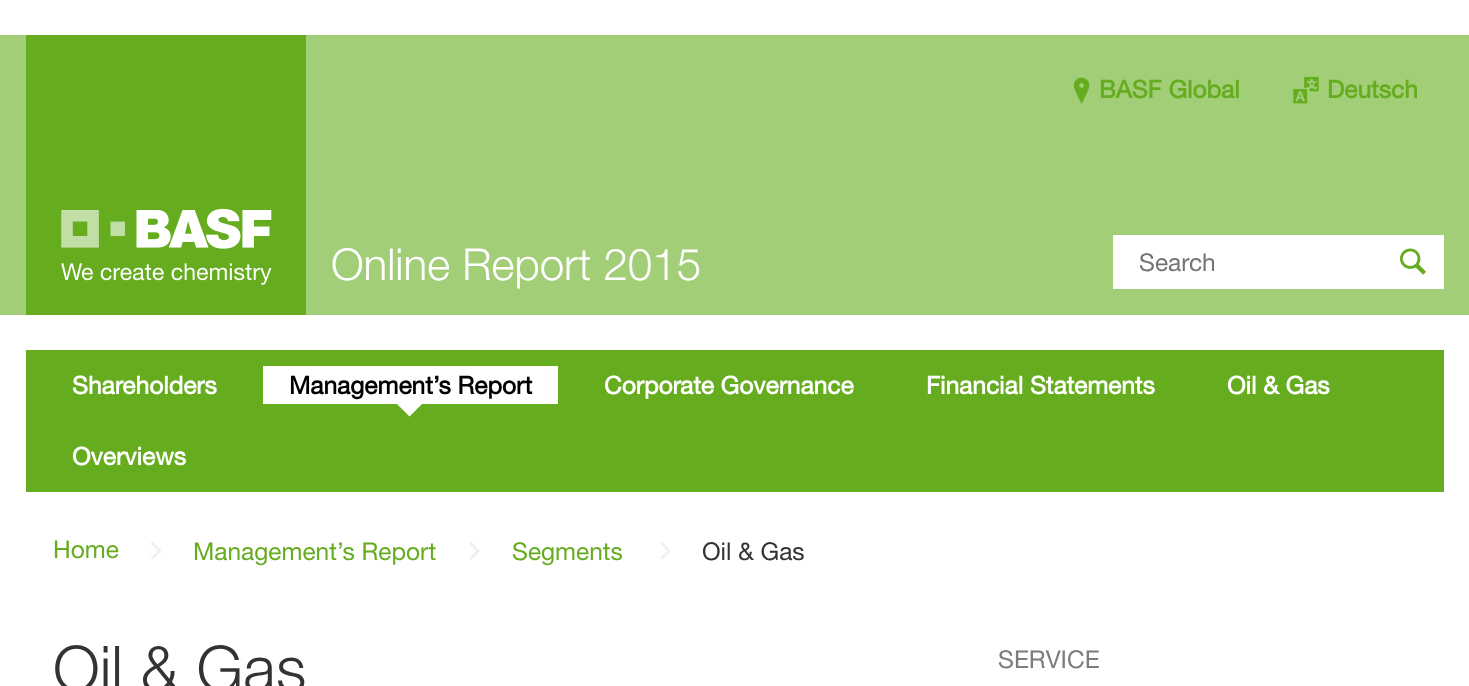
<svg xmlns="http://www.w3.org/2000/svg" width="1469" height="686">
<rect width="100%" height="100%" fill="#fff"/>
<rect y="35" width="1469" height="280" fill="#a3ce78"/>
<rect x="26" y="35" width="280" height="280" fill="#65ac1e"/>
<image x="61" y="208" width="211" height="77" href="media/1.png"/>
<text x="331" y="280" style="font-family:'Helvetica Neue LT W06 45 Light';font-size:44px;font-weight:300;fill:#fff">Online Report 2015</text>
<image x="1073" y="77" width="17" height="27" href="media/2.png"/>
<text x="1099" y="98" style="font-family:'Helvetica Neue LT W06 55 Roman';font-size:24.5px;font-weight:bold;fill:#65ac1e">BASF Global</text>
<image x="1293" y="76" width="26" height="28" href="media/3.png"/>
<text x="1327" y="98" style="font-family:'Helvetica Neue LT W06 55 Roman';font-size:24.5px;font-weight:bold;fill:#65ac1e">Deutsch</text>
<rect x="1113" y="235" width="331" height="54" fill="#fff"/>
<text x="1139" y="271" style="font-family:'Helvetica Neue LT W06 55 Roman';font-size:24.5px;fill:#757575">Search</text>
<image x="1400" y="248" width="26" height="27" href="media/4.png"/>
<rect x="26" y="350" width="1418" height="142" fill="#65ac1e"/>
<text x="72" y="394" style="font-family:'Helvetica Neue LT W06 55 Roman';font-size:24.5px;font-weight:bold;fill:#fff">Shareholders</text>
<rect x="263" y="366" width="295" height="38" fill="#fff"/>
<text x="289" y="394" style="font-family:'Helvetica Neue LT W06 55 Roman';font-size:24.5px;font-weight:bold;fill:#000">Management’s Report</text>
<path d="M395.5 402.5h28l-14 14z" fill="#fff"/>
<text x="604" y="394" style="font-family:'Helvetica Neue LT W06 55 Roman';font-size:24.5px;font-weight:bold;fill:#fff">Corporate Governance</text>
<text x="926" y="394" style="font-family:'Helvetica Neue LT W06 55 Roman';font-size:24.5px;font-weight:bold;fill:#fff">Financial Statements</text>
<text x="1227" y="394" style="font-family:'Helvetica Neue LT W06 55 Roman';font-size:24.5px;font-weight:bold;fill:#fff">Oil &amp; Gas</text>
<text x="72" y="465" style="font-family:'Helvetica Neue LT W06 55 Roman';font-size:24.5px;font-weight:bold;fill:#fff">Overviews</text>
<text x="53" y="558" style="font-family:'Helvetica Neue LT W06 55 Roman';font-size:24.5px;fill:#65ac1e">Home</text>
<path d="M161.5 551l-9 9l-2-2l7.5-7l-7.5-7.5l2-2z" fill="#f0f0f0"/>
<text x="193" y="560" style="font-family:'Helvetica Neue LT W06 55 Roman';font-size:24.5px;fill:#65ac1e">Management’s Report</text>
<path d="M480 551l-9 9l-2-2l7.5-7l-7.5-7.5l2-2z" fill="#f0f0f0"/>
<text x="512" y="560" style="font-family:'Helvetica Neue LT W06 55 Roman';font-size:24.5px;fill:#65ac1e">Segments</text>
<path d="M671 551l-9 9l-2-2l7-7l-7-7.5l2-2z" fill="#f0f0f0"/>
<text x="702" y="560" style="font-family:'Helvetica Neue LT W06 55 Roman';font-size:24.5px;fill:#333">Oil &amp; Gas</text>
<text x="53" y="691" style="font-family:'Helvetica Neue LT W06 45 Light';font-size:63px;font-weight:300;fill:#333">Oil &amp; Gas</text>
<text x="998" y="668" style="font-family:'Helvetica Neue LT W06 55 Roman';font-size:24.5px;fill:#7c7c7c">SERVICE</text>
</svg>
